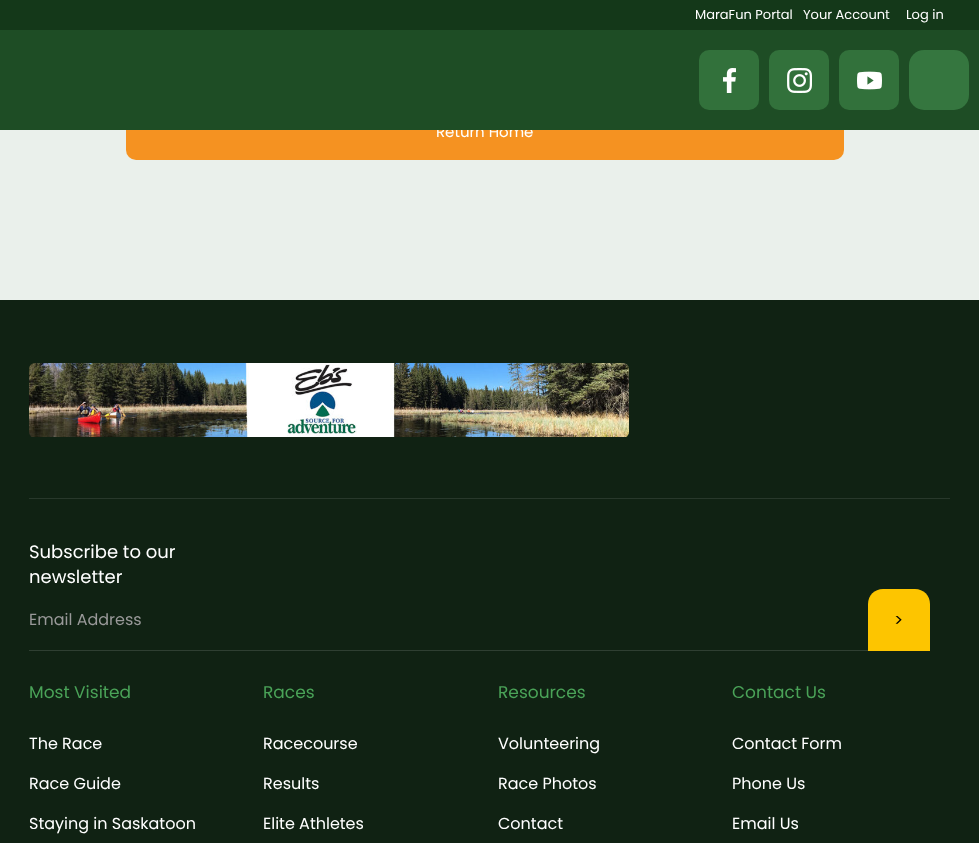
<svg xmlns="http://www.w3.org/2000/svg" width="979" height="843">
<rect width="100%" height="100%" fill="#eaf0eb"/>
<rect width="979" height="30" fill="#143819"/>
<text x="695" y="19" style="font-family:Poppins;font-size:13px;fill:#fff">MaraFun Portal</text>
<text x="803" y="19" style="font-family:Poppins;font-size:13px;fill:#fff">Your Account</text>
<text x="906" y="19" style="font-family:Poppins;font-size:13px;fill:#fff">Log in</text>
<rect x="126" y="104" width="718" height="56" rx="10" fill="#f59221"/>
<text x="436" y="137" style="font-family:Poppins;font-size:15px;fill:#fff">Return Home</text>
<rect y="30" width="979" height="100" fill="#1e4d25"/>
<rect x="699" y="50" width="60" height="60" rx="10" fill="#32713b"/>
<image x="723" y="68" width="13" height="25" href="media/1.png"/>
<rect x="769" y="50" width="60" height="60" rx="10" fill="#32713b"/>
<image x="787" y="68" width="25" height="25" href="media/2.png"/>
<rect x="839" y="50" width="60" height="60" rx="10" fill="#32713b"/>
<image x="857" y="71" width="25" height="19" href="media/3.png"/>
<rect x="909" y="50" width="60" height="60" rx="15" fill="#35763f"/>
<rect y="300" width="979" height="543" fill="#102213"/>
<rect x="29" y="498" width="921" height="1" fill="#28382b"/>
<image x="29" y="363" width="600" height="74" href="media/4.png"/>
<text x="29" y="558" style="font-family:Poppins;font-size:18px;fill:#fff">Subscribe to our</text>
<text x="29" y="583" style="font-family:Poppins;font-size:18px;fill:#fff">newsletter</text>
<rect x="29" y="650" width="839" height="1" fill="#2f3f32"/>
<text x="29" y="625" style="font-family:Poppins;font-size:16px;fill:#999">Email Address</text>
<path d="M883 589h32c8.5 0 15 6.5 15 15v47h-62v-47c0-8.5 6.5-15 15-15z" fill="#fdc500"/>
<text x="894" y="626" style="font-family:Poppins;font-size:17px;fill:#000">&gt;</text>
<text x="29" y="698" style="font-family:Poppins;font-size:17px;fill:#4aa358">Most Visited</text>
<text x="29" y="749" style="font-family:Poppins;font-size:16px;fill:#fff">The Race</text>
<text x="29" y="789" style="font-family:Poppins;font-size:16px;fill:#fff">Race Guide</text>
<text x="29" y="829" style="font-family:Poppins;font-size:16px;fill:#fff">Staying in Saskatoon</text>
<text x="263" y="698" style="font-family:Poppins;font-size:17px;fill:#4aa358">Races</text>
<text x="263" y="749" style="font-family:Poppins;font-size:16px;fill:#fff">Racecourse</text>
<text x="263" y="789" style="font-family:Poppins;font-size:16px;fill:#fff">Results</text>
<text x="263" y="829" style="font-family:Poppins;font-size:16px;fill:#fff">Elite Athletes</text>
<text x="498" y="698" style="font-family:Poppins;font-size:17px;fill:#4aa358">Resources</text>
<text x="498" y="749" style="font-family:Poppins;font-size:16px;fill:#fff">Volunteering</text>
<text x="498" y="789" style="font-family:Poppins;font-size:16px;fill:#fff">Race Photos</text>
<text x="498" y="829" style="font-family:Poppins;font-size:16px;fill:#fff">Contact</text>
<text x="732" y="698" style="font-family:Poppins;font-size:17px;fill:#4aa358">Contact Us</text>
<text x="732" y="749" style="font-family:Poppins;font-size:16px;fill:#fff">Contact Form</text>
<text x="732" y="789" style="font-family:Poppins;font-size:16px;fill:#fff">Phone Us</text>
<text x="732" y="829" style="font-family:Poppins;font-size:16px;fill:#fff">Email Us</text>
</svg>
